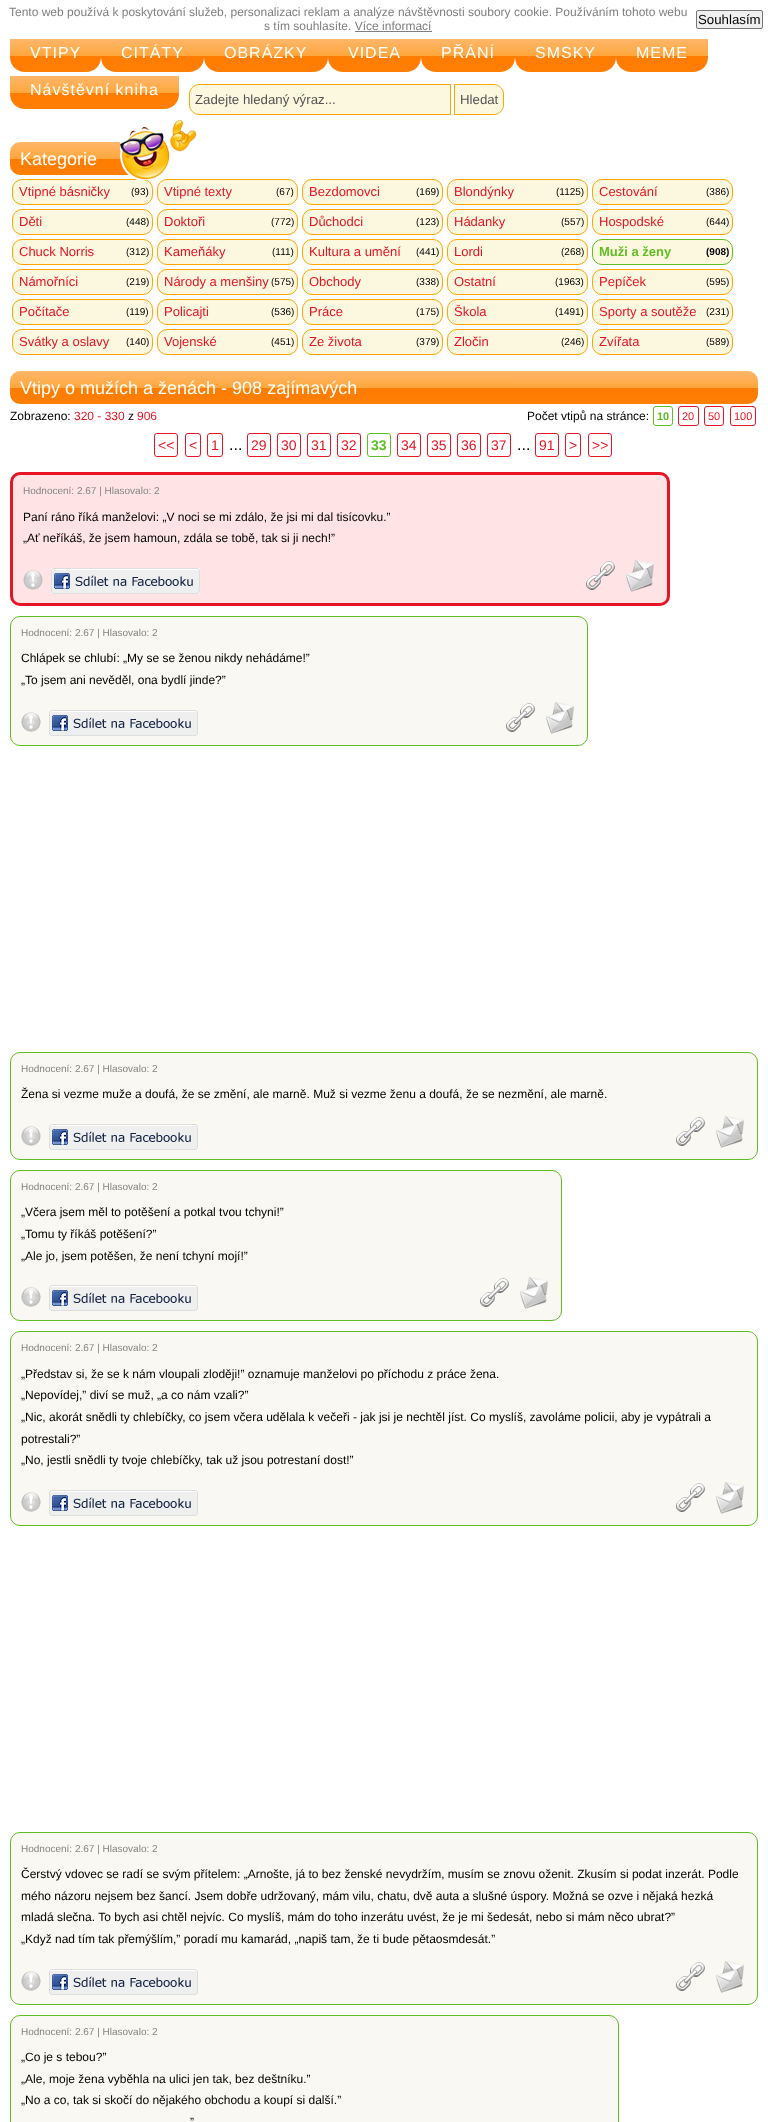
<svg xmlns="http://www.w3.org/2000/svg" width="768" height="2122">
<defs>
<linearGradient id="g1" gradientUnits="userSpaceOnUse" x1="56" y1="39" x2="56" y2="72"><stop offset="0" stop-color="#ffb76b"/><stop offset="0.5" stop-color="#ffa73d"/><stop offset="0.51" stop-color="#ff7c00"/><stop offset="1" stop-color="#ff7f04"/></linearGradient>
<linearGradient id="g2" gradientUnits="userSpaceOnUse" x1="153" y1="39" x2="153" y2="72"><stop offset="0" stop-color="#ffb76b"/><stop offset="0.5" stop-color="#ffa73d"/><stop offset="0.51" stop-color="#ff7c00"/><stop offset="1" stop-color="#ff7f04"/></linearGradient>
<linearGradient id="g3" gradientUnits="userSpaceOnUse" x1="266" y1="39" x2="266" y2="72"><stop offset="0" stop-color="#ffb76b"/><stop offset="0.5" stop-color="#ffa73d"/><stop offset="0.51" stop-color="#ff7c00"/><stop offset="1" stop-color="#ff7f04"/></linearGradient>
<linearGradient id="g4" gradientUnits="userSpaceOnUse" x1="375" y1="39" x2="375" y2="72"><stop offset="0" stop-color="#ffb76b"/><stop offset="0.5" stop-color="#ffa73d"/><stop offset="0.51" stop-color="#ff7c00"/><stop offset="1" stop-color="#ff7f04"/></linearGradient>
<linearGradient id="g5" gradientUnits="userSpaceOnUse" x1="468" y1="39" x2="468" y2="72"><stop offset="0" stop-color="#ffb76b"/><stop offset="0.5" stop-color="#ffa73d"/><stop offset="0.51" stop-color="#ff7c00"/><stop offset="1" stop-color="#ff7f04"/></linearGradient>
<linearGradient id="g6" gradientUnits="userSpaceOnUse" x1="566" y1="39" x2="566" y2="72"><stop offset="0" stop-color="#ffb76b"/><stop offset="0.5" stop-color="#ffa73d"/><stop offset="0.51" stop-color="#ff7c00"/><stop offset="1" stop-color="#ff7f04"/></linearGradient>
<linearGradient id="g7" gradientUnits="userSpaceOnUse" x1="662" y1="39" x2="662" y2="72"><stop offset="0" stop-color="#ffb76b"/><stop offset="0.5" stop-color="#ffa73d"/><stop offset="0.51" stop-color="#ff7c00"/><stop offset="1" stop-color="#ff7f04"/></linearGradient>
<linearGradient id="g8" gradientUnits="userSpaceOnUse" x1="95" y1="76" x2="95" y2="109"><stop offset="0" stop-color="#ffb76b"/><stop offset="0.5" stop-color="#ffa73d"/><stop offset="0.51" stop-color="#ff7c00"/><stop offset="1" stop-color="#ff7f04"/></linearGradient>
<linearGradient id="g9" gradientUnits="userSpaceOnUse" x1="86" y1="142" x2="86" y2="175"><stop offset="0" stop-color="#ffb76b"/><stop offset="0.5" stop-color="#ffa73d"/><stop offset="0.51" stop-color="#ff7c00"/><stop offset="1" stop-color="#ff7f04"/></linearGradient>
<linearGradient id="g10" gradientUnits="userSpaceOnUse" x1="384" y1="371" x2="384" y2="404"><stop offset="0" stop-color="#ffb76b"/><stop offset="0.5" stop-color="#ffa73d"/><stop offset="0.51" stop-color="#ff7c00"/><stop offset="1" stop-color="#ff7f04"/></linearGradient>
</defs>
<rect width="100%" height="100%" fill="#fff"/>
<image x="0" y="0" width="768" height="37" href="media/1.png"/>
<text x="9" y="16" style="font-family:Liberation Sans;font-size:12px;fill:#808080">Tento web používá k poskytování služeb, personalizaci reklam a analýze návštěvnosti soubory cookie. Používáním tohoto webu</text>
<text x="264" y="30" style="font-family:Liberation Sans;font-size:12px;fill:#808080">s tím souhlasíte. Více informací</text>
<rect x="355" y="31" width="77" height="1" fill="#808080"/>
<rect x="696.5" y="10.5" width="66" height="18" rx="1.5" fill="#efefef" stroke="#767676"/>
<text x="698" y="24" style="font-family:Liberation Sans;font-size:13.25px;fill:#000">Souhlasím</text>
<path d="M10 39h91v18c0 8.5-6.5 15-15 15h-61c-8.5 0-15-6.5-15-15z" fill="url(#g1)"/>
<text x="30" y="58" style="font-family:Liberation Sans;font-size:16px;letter-spacing:1px;fill:#fff">VTIPY</text>
<path d="M101 39h103v18c0 8.5-6.5 15-15 15h-73c-8.5 0-15-6.5-15-15z" fill="url(#g2)"/>
<text x="121" y="58" style="font-family:Liberation Sans;font-size:16px;letter-spacing:1px;fill:#fff">CITÁTY</text>
<path d="M204 39h124v18c0 8.5-6.5 15-15 15h-94c-8.5 0-15-6.5-15-15z" fill="url(#g3)"/>
<text x="224" y="58" style="font-family:Liberation Sans;font-size:16px;letter-spacing:1px;fill:#fff">OBRÁZKY</text>
<path d="M328 39h93v18c0 8.5-6.5 15-15 15h-63c-8.5 0-15-6.5-15-15z" fill="url(#g4)"/>
<text x="348" y="58" style="font-family:Liberation Sans;font-size:16px;letter-spacing:1px;fill:#fff">VIDEA</text>
<path d="M421 39h94v18c0 8.5-6.5 15-15 15h-64c-8.5 0-15-6.5-15-15z" fill="url(#g5)"/>
<text x="441" y="58" style="font-family:Liberation Sans;font-size:16px;letter-spacing:1px;fill:#fff">PŘÁNÍ</text>
<path d="M515 39h101v18c0 8.5-6.5 15-15 15h-71c-8.5 0-15-6.5-15-15z" fill="url(#g6)"/>
<text x="535" y="58" style="font-family:Liberation Sans;font-size:16px;letter-spacing:1px;fill:#fff">SMSKY</text>
<path d="M616 39h92v18c0 8.5-6.5 15-15 15h-62c-8.5 0-15-6.5-15-15z" fill="url(#g7)"/>
<text x="636" y="58" style="font-family:Liberation Sans;font-size:16px;letter-spacing:1px;fill:#fff">MEME</text>
<path d="M10 76h169v18c0 8.5-6.5 15-15 15h-139c-8.5 0-15-6.5-15-15z" fill="url(#g8)"/>
<text x="30" y="95" style="font-family:Liberation Sans;font-size:16px;letter-spacing:1px;fill:#fff">Návštěvní kniha</text>
<path d="M199 84.5h251.5v30h-251.5c-5 0-9.5-4.5-9.5-9.5v-11c0-5 4.5-9.5 9.5-9.5z" fill="#fcf8df" stroke="#ffa500"/>
<text x="195" y="104" style="font-family:Liberation Sans;font-size:13.25px;fill:#535353">Zadejte hledaný výraz...</text>
<path d="M454.5 84.5h39.5c5 0 9.5 4.5 9.5 9.5v11c0 5-4.5 9.5-9.5 9.5h-39.5z" fill="#fcf8df" stroke="#ffa500"/>
<text x="460" y="104" style="font-family:Liberation Sans;font-size:13.25px;fill:#535353">Hledat</text>
<rect x="10" y="142" width="152" height="33" rx="10" fill="url(#g9)"/>
<text x="20" y="165" style="font-family:Liberation Sans;font-size:18px;fill:#fff">Kategorie</text>
<rect x="12.5" y="179.5" width="140" height="25" rx="9.5" fill="#fcf8df" stroke="#ffa500"/>
<rect x="157.5" y="179.5" width="140" height="25" rx="9.5" fill="#fcf8df" stroke="#ffa500"/>
<image x="120" y="120" width="77" height="60" href="media/2.png"/>
<text x="19" y="196" style="font-family:Liberation Sans;font-size:13px;fill:#e61424">Vtipné básničky</text>
<text x="131" y="195" style="font-family:Liberation Sans;font-size:10px;fill:#000">(93)</text>
<text x="164" y="196" style="font-family:Liberation Sans;font-size:13px;fill:#e61424">Vtipné texty</text>
<text x="276" y="195" style="font-family:Liberation Sans;font-size:10px;fill:#000">(67)</text>
<rect x="302.5" y="179.5" width="140" height="25" rx="9.5" fill="#fcf8df" stroke="#ffa500"/>
<text x="309" y="196" style="font-family:Liberation Sans;font-size:13px;fill:#e61424">Bezdomovci</text>
<text x="416" y="195" style="font-family:Liberation Sans;font-size:10px;fill:#000">(169)</text>
<rect x="447.5" y="179.5" width="140" height="25" rx="9.5" fill="#fcf8df" stroke="#ffa500"/>
<text x="454" y="196" style="font-family:Liberation Sans;font-size:13px;fill:#e61424">Blondýnky</text>
<text x="556" y="195" style="font-family:Liberation Sans;font-size:10px;fill:#000">(1125)</text>
<rect x="592.5" y="179.5" width="140" height="25" rx="9.5" fill="#fcf8df" stroke="#ffa500"/>
<text x="599" y="196" style="font-family:Liberation Sans;font-size:13px;fill:#e61424">Cestování</text>
<text x="706" y="195" style="font-family:Liberation Sans;font-size:10px;fill:#000">(386)</text>
<rect x="12.5" y="209.5" width="140" height="25" rx="9.5" fill="#fcf8df" stroke="#ffa500"/>
<text x="19" y="226" style="font-family:Liberation Sans;font-size:13px;fill:#e61424">Děti</text>
<text x="126" y="225" style="font-family:Liberation Sans;font-size:10px;fill:#000">(448)</text>
<rect x="157.5" y="209.5" width="140" height="25" rx="9.5" fill="#fcf8df" stroke="#ffa500"/>
<text x="164" y="226" style="font-family:Liberation Sans;font-size:13px;fill:#e61424">Doktoři</text>
<text x="271" y="225" style="font-family:Liberation Sans;font-size:10px;fill:#000">(772)</text>
<rect x="302.5" y="209.5" width="140" height="25" rx="9.5" fill="#fcf8df" stroke="#ffa500"/>
<text x="309" y="226" style="font-family:Liberation Sans;font-size:13px;fill:#e61424">Důchodci</text>
<text x="416" y="225" style="font-family:Liberation Sans;font-size:10px;fill:#000">(123)</text>
<rect x="447.5" y="209.5" width="140" height="25" rx="9.5" fill="#fcf8df" stroke="#ffa500"/>
<text x="454" y="226" style="font-family:Liberation Sans;font-size:13px;fill:#e61424">Hádanky</text>
<text x="561" y="225" style="font-family:Liberation Sans;font-size:10px;fill:#000">(557)</text>
<rect x="592.5" y="209.5" width="140" height="25" rx="9.5" fill="#fcf8df" stroke="#ffa500"/>
<text x="599" y="226" style="font-family:Liberation Sans;font-size:13px;fill:#e61424">Hospodské</text>
<text x="706" y="225" style="font-family:Liberation Sans;font-size:10px;fill:#000">(644)</text>
<rect x="12.5" y="239.5" width="140" height="25" rx="9.5" fill="#fcf8df" stroke="#ffa500"/>
<text x="19" y="256" style="font-family:Liberation Sans;font-size:13px;fill:#e61424">Chuck Norris</text>
<text x="126" y="255" style="font-family:Liberation Sans;font-size:10px;fill:#000">(312)</text>
<rect x="157.5" y="239.5" width="140" height="25" rx="9.5" fill="#fcf8df" stroke="#ffa500"/>
<text x="164" y="256" style="font-family:Liberation Sans;font-size:13px;fill:#e61424">Kameňáky</text>
<text x="272" y="255" style="font-family:Liberation Sans;font-size:10px;fill:#000">(111)</text>
<rect x="302.5" y="239.5" width="140" height="25" rx="9.5" fill="#fcf8df" stroke="#ffa500"/>
<text x="309" y="256" style="font-family:Liberation Sans;font-size:13px;fill:#e61424">Kultura a umění</text>
<text x="416" y="255" style="font-family:Liberation Sans;font-size:10px;fill:#000">(441)</text>
<rect x="447.5" y="239.5" width="140" height="25" rx="9.5" fill="#fcf8df" stroke="#ffa500"/>
<text x="454" y="256" style="font-family:Liberation Sans;font-size:13px;fill:#e61424">Lordi</text>
<text x="561" y="255" style="font-family:Liberation Sans;font-size:10px;fill:#000">(268)</text>
<rect x="592.5" y="239.5" width="140" height="25" rx="9.5" fill="#fcf8df" stroke="#61bd24"/>
<text x="599" y="256" style="font-family:Liberation Sans;font-size:13px;font-weight:bold;fill:#61bd24">Muži a ženy</text>
<text x="706" y="255" style="font-family:Liberation Sans;font-size:10px;font-weight:bold;fill:#000">(908)</text>
<rect x="12.5" y="269.5" width="140" height="25" rx="9.5" fill="#fcf8df" stroke="#ffa500"/>
<text x="19" y="286" style="font-family:Liberation Sans;font-size:13px;fill:#e61424">Námořníci</text>
<text x="126" y="285" style="font-family:Liberation Sans;font-size:10px;fill:#000">(219)</text>
<rect x="157.5" y="269.5" width="140" height="25" rx="9.5" fill="#fcf8df" stroke="#ffa500"/>
<text x="164" y="286" style="font-family:Liberation Sans;font-size:13px;fill:#e61424">Národy a menšiny</text>
<text x="271" y="285" style="font-family:Liberation Sans;font-size:10px;fill:#000">(575)</text>
<rect x="302.5" y="269.5" width="140" height="25" rx="9.5" fill="#fcf8df" stroke="#ffa500"/>
<text x="309" y="286" style="font-family:Liberation Sans;font-size:13px;fill:#e61424">Obchody</text>
<text x="416" y="285" style="font-family:Liberation Sans;font-size:10px;fill:#000">(338)</text>
<rect x="447.5" y="269.5" width="140" height="25" rx="9.5" fill="#fcf8df" stroke="#ffa500"/>
<text x="454" y="286" style="font-family:Liberation Sans;font-size:13px;fill:#e61424">Ostatní</text>
<text x="555" y="285" style="font-family:Liberation Sans;font-size:10px;fill:#000">(1963)</text>
<rect x="592.5" y="269.5" width="140" height="25" rx="9.5" fill="#fcf8df" stroke="#ffa500"/>
<text x="599" y="286" style="font-family:Liberation Sans;font-size:13px;fill:#e61424">Pepíček</text>
<text x="706" y="285" style="font-family:Liberation Sans;font-size:10px;fill:#000">(595)</text>
<rect x="12.5" y="299.5" width="140" height="25" rx="9.5" fill="#fcf8df" stroke="#ffa500"/>
<text x="19" y="316" style="font-family:Liberation Sans;font-size:13px;fill:#e61424">Počítače</text>
<text x="126" y="315" style="font-family:Liberation Sans;font-size:10px;fill:#000">(119)</text>
<rect x="157.5" y="299.5" width="140" height="25" rx="9.5" fill="#fcf8df" stroke="#ffa500"/>
<text x="164" y="316" style="font-family:Liberation Sans;font-size:13px;fill:#e61424">Policajti</text>
<text x="271" y="315" style="font-family:Liberation Sans;font-size:10px;fill:#000">(536)</text>
<rect x="302.5" y="299.5" width="140" height="25" rx="9.5" fill="#fcf8df" stroke="#ffa500"/>
<text x="309" y="316" style="font-family:Liberation Sans;font-size:13px;fill:#e61424">Práce</text>
<text x="416" y="315" style="font-family:Liberation Sans;font-size:10px;fill:#000">(175)</text>
<rect x="447.5" y="299.5" width="140" height="25" rx="9.5" fill="#fcf8df" stroke="#ffa500"/>
<text x="454" y="316" style="font-family:Liberation Sans;font-size:13px;fill:#e61424">Škola</text>
<text x="555" y="315" style="font-family:Liberation Sans;font-size:10px;fill:#000">(1491)</text>
<rect x="592.5" y="299.5" width="140" height="25" rx="9.5" fill="#fcf8df" stroke="#ffa500"/>
<text x="599" y="316" style="font-family:Liberation Sans;font-size:13px;fill:#e61424">Sporty a soutěže</text>
<text x="706" y="315" style="font-family:Liberation Sans;font-size:10px;fill:#000">(231)</text>
<rect x="12.5" y="329.5" width="140" height="25" rx="9.5" fill="#fcf8df" stroke="#ffa500"/>
<text x="19" y="346" style="font-family:Liberation Sans;font-size:13px;fill:#e61424">Svátky a oslavy</text>
<text x="126" y="345" style="font-family:Liberation Sans;font-size:10px;fill:#000">(140)</text>
<rect x="157.5" y="329.5" width="140" height="25" rx="9.5" fill="#fcf8df" stroke="#ffa500"/>
<text x="164" y="346" style="font-family:Liberation Sans;font-size:13px;fill:#e61424">Vojenské</text>
<text x="271" y="345" style="font-family:Liberation Sans;font-size:10px;fill:#000">(451)</text>
<rect x="302.5" y="329.5" width="140" height="25" rx="9.5" fill="#fcf8df" stroke="#ffa500"/>
<text x="309" y="346" style="font-family:Liberation Sans;font-size:13px;fill:#e61424">Ze života</text>
<text x="416" y="345" style="font-family:Liberation Sans;font-size:10px;fill:#000">(379)</text>
<rect x="447.5" y="329.5" width="140" height="25" rx="9.5" fill="#fcf8df" stroke="#ffa500"/>
<text x="454" y="346" style="font-family:Liberation Sans;font-size:13px;fill:#e61424">Zločin</text>
<text x="561" y="345" style="font-family:Liberation Sans;font-size:10px;fill:#000">(246)</text>
<rect x="592.5" y="329.5" width="140" height="25" rx="9.5" fill="#fcf8df" stroke="#ffa500"/>
<text x="599" y="346" style="font-family:Liberation Sans;font-size:13px;fill:#e61424">Zvířata</text>
<text x="706" y="345" style="font-family:Liberation Sans;font-size:10px;fill:#000">(589)</text>
<rect x="10" y="371" width="748" height="33" rx="10" fill="url(#g10)"/>
<text x="20" y="394" style="font-family:Liberation Sans;font-size:18px;fill:#fff">Vtipy o mužích a ženách - 908 zajímavých</text>
<text x="10" y="420" style="font-family:Liberation Sans;font-size:12px;fill:#000">Zobrazeno:</text>
<text x="74" y="420" style="font-family:Liberation Sans;font-size:12px;fill:#e61424">320 - 330</text>
<text x="128" y="420" style="font-family:Liberation Sans;font-size:12px;fill:#000">z</text>
<text x="137" y="420" style="font-family:Liberation Sans;font-size:12px;fill:#e61424">906</text>
<text x="527" y="420" style="font-family:Liberation Sans;font-size:12px;fill:#000">Počet vtipů na stránce:</text>
<rect x="653.5" y="406.5" width="19" height="19" rx="2.5" fill="none" stroke="#61bd24"/>
<text x="657" y="420" style="font-family:Liberation Sans;font-size:11px;font-weight:bold;fill:#61bd24">10</text>
<rect x="678.5" y="406.5" width="20" height="19" rx="2.5" fill="none" stroke="#e61424"/>
<text x="682" y="420" style="font-family:Liberation Sans;font-size:11px;fill:#e61424">20</text>
<rect x="704.5" y="406.5" width="19" height="19" rx="2.5" fill="none" stroke="#e61424"/>
<text x="708" y="420" style="font-family:Liberation Sans;font-size:11px;fill:#e61424">50</text>
<rect x="730.5" y="406.5" width="25" height="19" rx="2.5" fill="none" stroke="#e61424"/>
<text x="734" y="420" style="font-family:Liberation Sans;font-size:11px;fill:#e61424">100</text>
<rect x="154.5" y="433.5" width="23" height="23" rx="2.5" fill="none" stroke="#e61424"/>
<text x="158" y="450" style="font-family:Liberation Sans;font-size:14px;fill:#e61424">&lt;&lt;</text>
<rect x="185.5" y="433.5" width="15" height="23" rx="2.5" fill="none" stroke="#e61424"/>
<text x="189" y="450" style="font-family:Liberation Sans;font-size:14px;fill:#e61424">&lt;</text>
<rect x="207.5" y="433.5" width="15" height="23" rx="2.5" fill="none" stroke="#e61424"/>
<text x="211" y="450" style="font-family:Liberation Sans;font-size:14px;fill:#e61424">1</text>
<text x="229" y="450" style="font-family:Liberation Sans;font-size:16px;fill:#000">...</text>
<rect x="247.5" y="433.5" width="23" height="23" rx="2.5" fill="none" stroke="#e61424"/>
<text x="251" y="450" style="font-family:Liberation Sans;font-size:14px;fill:#e61424">29</text>
<rect x="277.5" y="433.5" width="23" height="23" rx="2.5" fill="none" stroke="#e61424"/>
<text x="281" y="450" style="font-family:Liberation Sans;font-size:14px;fill:#e61424">30</text>
<rect x="307.5" y="433.5" width="23" height="23" rx="2.5" fill="none" stroke="#e61424"/>
<text x="311" y="450" style="font-family:Liberation Sans;font-size:14px;fill:#e61424">31</text>
<rect x="337.5" y="433.5" width="23" height="23" rx="2.5" fill="none" stroke="#e61424"/>
<text x="341" y="450" style="font-family:Liberation Sans;font-size:14px;fill:#e61424">32</text>
<rect x="367.5" y="433.5" width="23" height="23" rx="2.5" fill="none" stroke="#61bd24"/>
<text x="371" y="450" style="font-family:Liberation Sans;font-size:14px;font-weight:bold;fill:#61bd24">33</text>
<rect x="397.5" y="433.5" width="23" height="23" rx="2.5" fill="none" stroke="#e61424"/>
<text x="401" y="450" style="font-family:Liberation Sans;font-size:14px;fill:#e61424">34</text>
<rect x="427.5" y="433.5" width="23" height="23" rx="2.5" fill="none" stroke="#e61424"/>
<text x="431" y="450" style="font-family:Liberation Sans;font-size:14px;fill:#e61424">35</text>
<rect x="457.5" y="433.5" width="23" height="23" rx="2.5" fill="none" stroke="#e61424"/>
<text x="461" y="450" style="font-family:Liberation Sans;font-size:14px;fill:#e61424">36</text>
<rect x="487.5" y="433.5" width="23" height="23" rx="2.5" fill="none" stroke="#e61424"/>
<text x="491" y="450" style="font-family:Liberation Sans;font-size:14px;fill:#e61424">37</text>
<text x="517" y="450" style="font-family:Liberation Sans;font-size:16px;fill:#000">...</text>
<rect x="535.5" y="433.5" width="23" height="23" rx="2.5" fill="none" stroke="#e61424"/>
<text x="539" y="450" style="font-family:Liberation Sans;font-size:14px;fill:#e61424">91</text>
<rect x="565.5" y="433.5" width="15" height="23" rx="2.5" fill="none" stroke="#e61424"/>
<text x="569" y="450" style="font-family:Liberation Sans;font-size:14px;fill:#e61424">&gt;</text>
<rect x="588.5" y="433.5" width="23" height="23" rx="2.5" fill="none" stroke="#e61424"/>
<text x="592" y="450" style="font-family:Liberation Sans;font-size:14px;fill:#e61424">&gt;&gt;</text>
<rect x="11.5" y="473.5" width="657" height="131" rx="8.5" fill="#ffe3e5" stroke="#e61424" stroke-width="3"/>
<text x="23" y="494" style="font-family:Liberation Sans;font-size:10px;fill:#868484">Hodnocení: 2.67 | Hlasovalo: 2</text>
<text x="23" y="521" style="font-family:Liberation Sans;font-size:12px;fill:#000">Paní ráno říká manželovi: „V noci se mi zdálo, že jsi mi dal tisícovku.”</text>
<text x="23" y="542" style="font-family:Liberation Sans;font-size:12px;fill:#000">„Ať neříkáš, že jsem hamoun, zdála se tobě, tak si ji nech!”</text>
<image x="23" y="570" width="20" height="20" href="media/3.png"/>
<image x="51" y="568" width="149" height="26" href="media/4.png"/>
<image x="586" y="561" width="29" height="29" href="media/5.png"/>
<image x="625" y="560" width="29" height="32" href="media/6.png"/>
<rect x="10.5" y="616.5" width="577" height="129" rx="9.5" fill="#faf8f2" stroke="#61bd24"/>
<text x="21" y="636" style="font-family:Liberation Sans;font-size:10px;fill:#868484">Hodnocení: 2.67 | Hlasovalo: 2</text>
<text x="21" y="662" style="font-family:Liberation Sans;font-size:12px;fill:#000">Chlápek se chlubí: „My se se ženou nikdy nehádáme!”</text>
<text x="21" y="684" style="font-family:Liberation Sans;font-size:12px;fill:#000">„To jsem ani nevěděl, ona bydlí jinde?”</text>
<image x="21" y="712" width="20" height="20" href="media/7.png"/>
<image x="49" y="710" width="149" height="26" href="media/4.png"/>
<image x="506" y="703" width="29" height="29" href="media/8.png"/>
<image x="545" y="702" width="29" height="32" href="media/9.png"/>
<rect x="10.5" y="1052.5" width="747" height="107" rx="9.5" fill="#faf8f2" stroke="#61bd24"/>
<text x="21" y="1072" style="font-family:Liberation Sans;font-size:10px;fill:#868484">Hodnocení: 2.67 | Hlasovalo: 2</text>
<text x="21" y="1098" style="font-family:Liberation Sans;font-size:12px;fill:#000">Žena si vezme muže a doufá, že se změní, ale marně. Muž si vezme ženu a doufá, že se nezmění, ale marně.</text>
<image x="21" y="1126" width="20" height="20" href="media/7.png"/>
<image x="49" y="1124" width="149" height="26" href="media/4.png"/>
<image x="676" y="1117" width="29" height="29" href="media/8.png"/>
<image x="715" y="1116" width="29" height="32" href="media/9.png"/>
<rect x="10.5" y="1170.5" width="551" height="150" rx="9.5" fill="#faf8f2" stroke="#61bd24"/>
<text x="21" y="1190" style="font-family:Liberation Sans;font-size:10px;fill:#868484">Hodnocení: 2.67 | Hlasovalo: 2</text>
<text x="21" y="1216" style="font-family:Liberation Sans;font-size:12px;fill:#000">„Včera jsem měl to potěšení a potkal tvou tchyni!”</text>
<text x="21" y="1238" style="font-family:Liberation Sans;font-size:12px;fill:#000">„Tomu ty říkáš potěšení?”</text>
<text x="21" y="1260" style="font-family:Liberation Sans;font-size:12px;fill:#000">„Ale jo, jsem potěšen, že není tchyní mojí!”</text>
<image x="21" y="1287" width="20" height="20" href="media/7.png"/>
<image x="49" y="1285" width="149" height="26" href="media/4.png"/>
<image x="480" y="1278" width="29" height="29" href="media/8.png"/>
<image x="519" y="1277" width="29" height="32" href="media/9.png"/>
<rect x="10.5" y="1331.5" width="747" height="194" rx="9.5" fill="#faf8f2" stroke="#61bd24"/>
<text x="21" y="1351" style="font-family:Liberation Sans;font-size:10px;fill:#868484">Hodnocení: 2.67 | Hlasovalo: 2</text>
<text x="21" y="1378" style="font-family:Liberation Sans;font-size:12px;fill:#000">„Představ si, že se k nám vloupali zloději!” oznamuje manželovi po příchodu z práce žena.</text>
<text x="21" y="1399" style="font-family:Liberation Sans;font-size:12px;fill:#000">„Nepovídej,” diví se muž, „a co nám vzali?”</text>
<text x="21" y="1421" style="font-family:Liberation Sans;font-size:12px;fill:#000">„Nic, akorát snědli ty chlebíčky, co jsem včera udělala k večeři - jak jsi je nechtěl jíst. Co myslíš, zavoláme policii, aby je vypátrali a</text>
<text x="21" y="1443" style="font-family:Liberation Sans;font-size:12px;fill:#000">potrestali?”</text>
<text x="21" y="1464" style="font-family:Liberation Sans;font-size:12px;fill:#000">„No, jestli snědli ty tvoje chlebíčky, tak už jsou potrestaní dost!”</text>
<image x="21" y="1492" width="20" height="20" href="media/7.png"/>
<image x="49" y="1490" width="149" height="26" href="media/4.png"/>
<image x="676" y="1483" width="29" height="29" href="media/8.png"/>
<image x="715" y="1482" width="29" height="32" href="media/9.png"/>
<rect x="10.5" y="1832.5" width="747" height="172" rx="9.5" fill="#faf8f2" stroke="#61bd24"/>
<text x="21" y="1852" style="font-family:Liberation Sans;font-size:10px;fill:#868484">Hodnocení: 2.67 | Hlasovalo: 2</text>
<text x="21" y="1878" style="font-family:Liberation Sans;font-size:12px;fill:#000">Čerstvý vdovec se radí se svým přítelem: „Arnošte, já to bez ženské nevydržím, musím se znovu oženit. Zkusím si podat inzerát. Podle</text>
<text x="21" y="1900" style="font-family:Liberation Sans;font-size:12px;fill:#000">mého názoru nejsem bez šancí. Jsem dobře udržovaný, mám vilu, chatu, dvě auta a slušné úspory. Možná se ozve i nějaká hezká</text>
<text x="21" y="1921" style="font-family:Liberation Sans;font-size:12px;fill:#000">mladá slečna. To bych asi chtěl nejvíc. Co myslíš, mám do toho inzerátu uvést, že je mi šedesát, nebo si mám něco ubrat?”</text>
<text x="21" y="1943" style="font-family:Liberation Sans;font-size:12px;fill:#000">„Když nad tím tak přemýšlím,” poradí mu kamarád, „napiš tam, že ti bude pětaosmdesát.”</text>
<image x="21" y="1971" width="20" height="20" href="media/7.png"/>
<image x="49" y="1969" width="149" height="26" href="media/4.png"/>
<image x="676" y="1962" width="29" height="29" href="media/8.png"/>
<image x="715" y="1961" width="29" height="32" href="media/9.png"/>
<rect x="10.5" y="2015.5" width="608" height="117" rx="9.5" fill="#faf8f2" stroke="#61bd24"/>
<text x="21" y="2035" style="font-family:Liberation Sans;font-size:10px;fill:#868484">Hodnocení: 2.67 | Hlasovalo: 2</text>
<text x="21" y="2061" style="font-family:Liberation Sans;font-size:12px;fill:#000">„Co je s tebou?”</text>
<text x="21" y="2083" style="font-family:Liberation Sans;font-size:12px;fill:#000">„Ale, moje žena vyběhla na ulici jen tak, bez deštníku.”</text>
<text x="21" y="2104" style="font-family:Liberation Sans;font-size:12px;fill:#000">„No a co, tak si skočí do nějakého obchodu a koupí si další.”</text>
<text x="190" y="2126" style="font-family:Liberation Sans;font-size:12px;fill:#000">”</text>
</svg>
